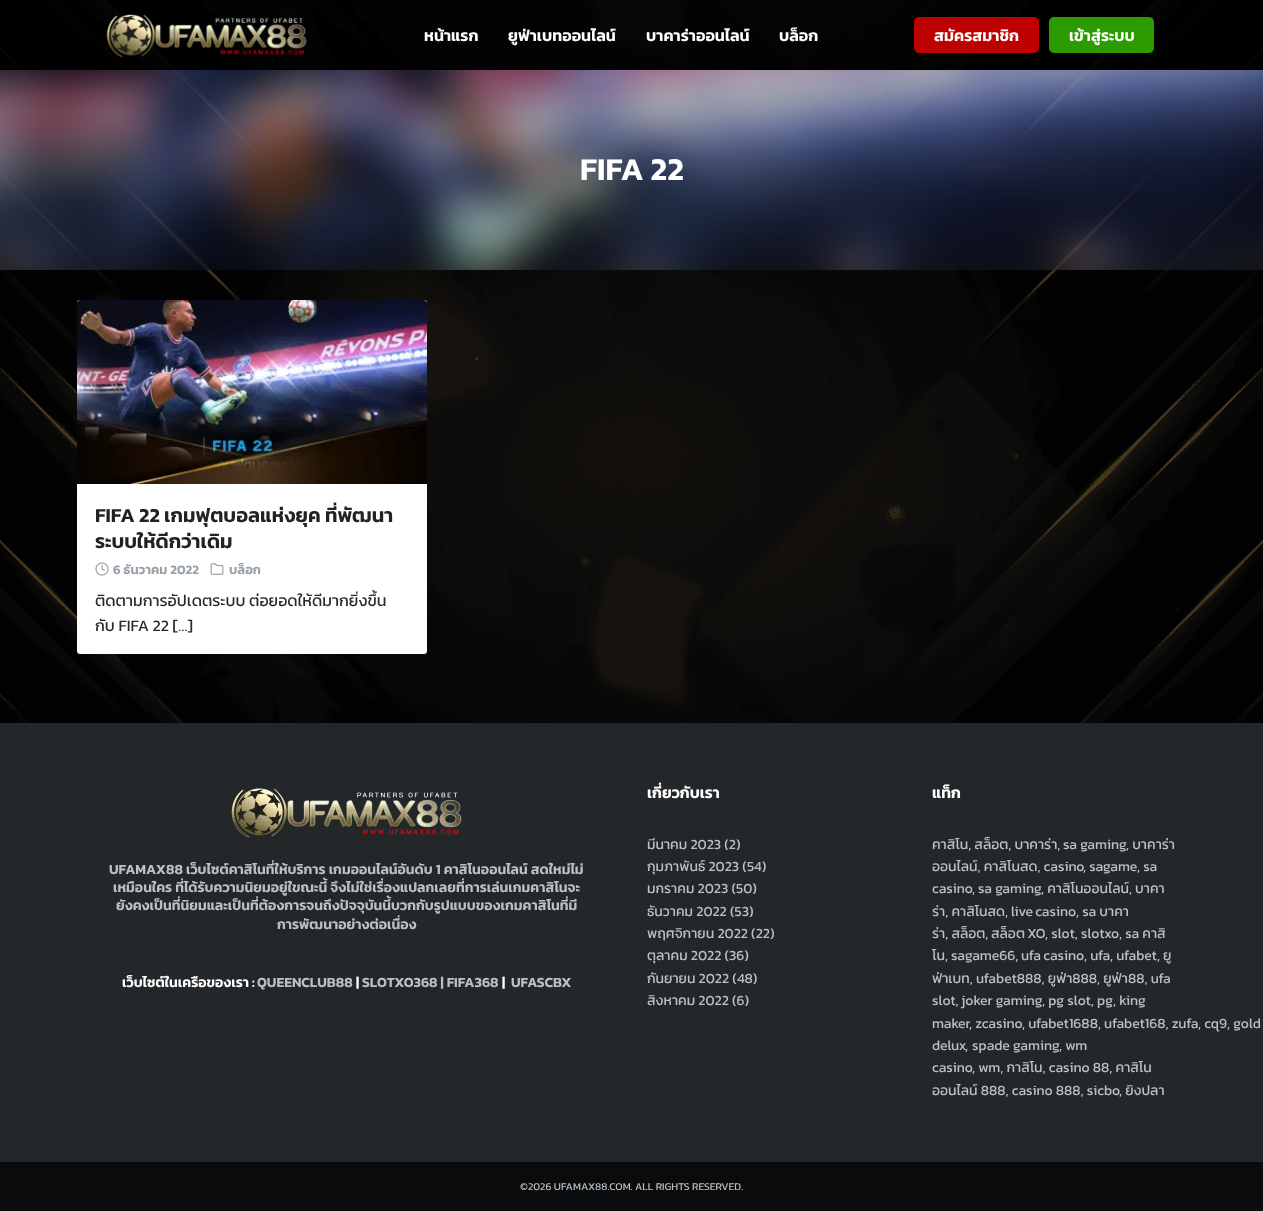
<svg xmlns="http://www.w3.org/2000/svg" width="1263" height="1211">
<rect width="100%" height="100%" fill="#fff"/>
<image x="0" y="0" width="1263" height="723" href="media/1.png"/>
<rect width="1263" height="70" fill="#00000091"/>
<image x="106" y="14" width="201" height="44" href="media/2.png"/>
<text x="424" y="41" style="font-family:Kanit;font-size:16px;font-weight:600;fill:#fff">หน้าแรก</text>
<text x="508" y="41" style="font-family:Kanit;font-size:16px;font-weight:600;fill:#fff">ยูฟ่าเบทออนไลน์</text>
<text x="646" y="41" style="font-family:Kanit;font-size:16px;font-weight:600;fill:#fff">บาคาร่าออนไลน์</text>
<text x="779" y="41" style="font-family:Kanit;font-size:16px;font-weight:600;fill:#fff">บล็อก</text>
<rect x="914" y="17" width="125" height="36" rx="5" fill="#be0000"/>
<text x="934" y="41" style="font-family:Kanit;font-size:16px;font-weight:600;fill:#fff">สมัครสมาชิก</text>
<rect x="1049" y="17" width="105" height="36" rx="5" fill="#2c9b00"/>
<text x="1069" y="41" style="font-family:Kanit;font-size:16px;font-weight:600;fill:#fff">เข้าสู่ระบบ</text>
<image x="0" y="70" width="1263" height="200" href="media/3.png"/>
<text x="580" y="180" style="font-family:Kanit;font-size:32px;font-weight:600;fill:#fff">FIFA 22</text>
<rect x="77" y="300" width="350" height="354" rx="3" fill="#fff"/>
<image x="77" y="300" width="350" height="184" href="media/4.png"/>
<text x="95" y="522" style="font-family:Kanit;font-size:20px;font-weight:600;fill:#222">FIFA 22 เกมฟุตบอลแห่งยุค ที่พัฒนา</text>
<text x="95" y="548" style="font-family:Kanit;font-size:20px;font-weight:600;fill:#222">ระบบให้ดีกว่าเดิม</text>
<image x="95" y="562" width="14" height="14" href="media/5.png"/>
<text x="113" y="574" style="font-family:Kanit;font-size:13px;font-weight:600;fill:#98a1a9">6 ธันวาคม 2022</text>
<image x="210" y="563" width="14" height="12" href="media/6.png"/>
<text x="229" y="574" style="font-family:Kanit;font-size:13px;font-weight:600;fill:#98a1a9">บล็อก</text>
<text x="95" y="606" style="font-family:Kanit;font-size:16px;fill:#2a2a2a">ติดตามการอัปเดตระบบ ต่อยอดให้ดีมากยิ่งขึ้น</text>
<text x="95" y="631" style="font-family:Kanit;font-size:16px;fill:#2a2a2a">กับ FIFA 22 […]</text>
<rect y="723" width="1263" height="439" fill="#242729"/>
<image x="231" y="788" width="231" height="50" href="media/7.png"/>
<text x="109" y="874" style="font-family:Kanit;font-size:14px;font-weight:600;fill:#bbc0c4">UFAMAX88 เว็บไซต์คาสิโนที่ให้บริการ เกมออนไลน์อันดับ 1 คาสิโนออนไลน์ สดใหม่ไม่</text>
<text x="113" y="892" style="font-family:Kanit;font-size:14px;font-weight:600;fill:#bbc0c4">เหมือนใคร ที่ได้รับความนิยมอยู่ใขณะนี้ จึงไม่ใช่เรื่องแปลกเลยที่การเล่นเกมคาสิโนจะ</text>
<text x="116" y="910" style="font-family:Kanit;font-size:14px;font-weight:600;fill:#bbc0c4">ยังคงเป็นที่นิยมและเป็นที่ต้องการจนถึงปัจจุบันนี้บวกกับรูปแบบของเกมคาสิโนที่มี</text>
<text x="277" y="929" style="font-family:Kanit;font-size:14px;font-weight:600;fill:#bbc0c4">การพัฒนาอย่างต่อเนื่อง</text>
<text x="122" y="987" style="font-family:Kanit;font-size:14px;font-weight:600;fill:#fff">เว็บไซต์ในเครือของเรา :</text>
<text x="257" y="987" style="font-family:Kanit;font-size:14px;font-weight:600;fill:#bbc0c4">QUEENCLUB88</text>
<text x="356" y="987" style="font-family:Kanit;font-size:14px;font-weight:600;fill:#fff">|</text>
<text x="362" y="987" style="font-family:Kanit;font-size:14px;font-weight:600;fill:#bbc0c4">SLOTXO368 | FIFA368</text>
<text x="502" y="987" style="font-family:Kanit;font-size:14px;font-weight:600;fill:#fff">|</text>
<text x="511" y="987" style="font-family:Kanit;font-size:14px;font-weight:600;fill:#bbc0c4">UFASCBX</text>
<text x="647" y="798" style="font-family:Kanit;font-size:15.75px;font-weight:600;fill:#fff">เกี่ยวกับเรา</text>
<text x="647" y="849" style="font-family:Kanit;font-size:14px;fill:#bbc0c4">มีนาคม 2023 (2)</text>
<text x="647" y="871" style="font-family:Kanit;font-size:14px;fill:#bbc0c4">กุมภาพันธ์ 2023 (54)</text>
<text x="647" y="893" style="font-family:Kanit;font-size:14px;fill:#bbc0c4">มกราคม 2023 (50)</text>
<text x="647" y="916" style="font-family:Kanit;font-size:14px;fill:#bbc0c4">ธันวาคม 2022 (53)</text>
<text x="647" y="938" style="font-family:Kanit;font-size:14px;fill:#bbc0c4">พฤศจิกายน 2022 (22)</text>
<text x="647" y="960" style="font-family:Kanit;font-size:14px;fill:#bbc0c4">ตุลาคม 2022 (36)</text>
<text x="647" y="983" style="font-family:Kanit;font-size:14px;fill:#bbc0c4">กันยายน 2022 (48)</text>
<text x="647" y="1005" style="font-family:Kanit;font-size:14px;fill:#bbc0c4">สิงหาคม 2022 (6)</text>
<text x="932" y="798" style="font-family:Kanit;font-size:15.75px;font-weight:600;fill:#fff">แท็ก</text>
<text x="932" y="849" style="font-family:Kanit;font-size:14px;fill:#bbc0c4">คาสิโน, สล็อต, บาคาร่า,</text>
<text x="1063" y="849" style="font-family:Kanit;font-size:14px;fill:#bbc0c4">sa gaming</text>
<text x="1126" y="849" style="font-family:Kanit;font-size:14px;fill:#bbc0c4">, บาคาร่า</text>
<text x="932" y="871" style="font-family:Kanit;font-size:14px;fill:#bbc0c4">ออนไลน์, คาสิโนสด, casino</text>
<text x="1083" y="871" style="font-family:Kanit;font-size:14px;fill:#bbc0c4">, sagame</text>
<text x="1137" y="871" style="font-family:Kanit;font-size:14px;fill:#bbc0c4">, sa</text>
<text x="932" y="893" style="font-family:Kanit;font-size:14px;fill:#bbc0c4">casino</text>
<text x="972" y="893" style="font-family:Kanit;font-size:14px;fill:#bbc0c4">,</text>
<text x="978" y="893" style="font-family:Kanit;font-size:14px;fill:#bbc0c4">sa gaming</text>
<text x="1041" y="893" style="font-family:Kanit;font-size:14px;fill:#bbc0c4">, คาสิโนออนไลน์, บาคา</text>
<text x="932" y="916" style="font-family:Kanit;font-size:14px;fill:#bbc0c4">ร่า, คาสิโนสด,</text>
<text x="1011" y="916" word-spacing="-1" style="font-family:Kanit;font-size:14px;fill:#bbc0c4">live casino</text>
<text x="1076" y="916" style="font-family:Kanit;font-size:14px;fill:#bbc0c4">, sa บาคา</text>
<text x="932" y="938" style="font-family:Kanit;font-size:14px;fill:#bbc0c4">ร่า, สล็อต,</text>
<text x="991" y="938" word-spacing="-1" style="font-family:Kanit;font-size:14px;fill:#bbc0c4">สล็อต XO</text>
<text x="1045" y="938" style="font-family:Kanit;font-size:14px;fill:#bbc0c4">, slot, slotxo</text>
<text x="1119" y="938" style="font-family:Kanit;font-size:14px;fill:#bbc0c4">, sa คาสิ</text>
<text x="932" y="960" style="font-family:Kanit;font-size:14px;fill:#bbc0c4">โน, sagame66,</text>
<text x="1021" y="960" word-spacing="-1" style="font-family:Kanit;font-size:14px;fill:#bbc0c4">ufa casino</text>
<text x="1084" y="960" style="font-family:Kanit;font-size:14px;fill:#bbc0c4">, ufa</text>
<text x="1110" y="960" style="font-family:Kanit;font-size:14px;fill:#bbc0c4">, ufabet, ยู</text>
<text x="932" y="983" style="font-family:Kanit;font-size:14px;fill:#bbc0c4">ฟ่าเบท, ufabet888, ยูฟ่า888, ยูฟ่า88, ufa</text>
<text x="932" y="1005" style="font-family:Kanit;font-size:14px;fill:#bbc0c4">slot,</text>
<text x="961" y="1005" style="font-family:Kanit;font-size:14px;fill:#bbc0c4">joker gaming</text>
<text x="1042" y="1005" style="font-family:Kanit;font-size:14px;fill:#bbc0c4">, pg slot, pg</text>
<text x="1113" y="1005" style="font-family:Kanit;font-size:14px;fill:#bbc0c4">, king</text>
<text x="932" y="1028" style="font-family:Kanit;font-size:14px;fill:#bbc0c4">maker</text>
<text x="969" y="1028" style="font-family:Kanit;font-size:14px;fill:#bbc0c4">, zcasino</text>
<text x="1022" y="1028" style="font-family:Kanit;font-size:14px;fill:#bbc0c4">, ufabet1688, ufabet168, zufa</text>
<text x="1198" y="1028" style="font-family:Kanit;font-size:14px;fill:#bbc0c4">, cq9, gold</text>
<text x="932" y="1050" style="font-family:Kanit;font-size:14px;fill:#bbc0c4">delux</text>
<text x="965" y="1050" style="font-family:Kanit;font-size:14px;fill:#bbc0c4">,</text>
<text x="972" y="1050" style="font-family:Kanit;font-size:14px;fill:#bbc0c4">spade gaming</text>
<text x="1059" y="1050" style="font-family:Kanit;font-size:14px;fill:#bbc0c4">, wm</text>
<text x="932" y="1072" style="font-family:Kanit;font-size:14px;fill:#bbc0c4">casino</text>
<text x="972" y="1072" style="font-family:Kanit;font-size:14px;fill:#bbc0c4">, wm, กาสิโน, casino 88, คาสิโน</text>
<text x="932" y="1095" style="font-family:Kanit;font-size:14px;fill:#bbc0c4">ออนไลน์ 888, casino 888, sicbo</text>
<text x="1119" y="1095" style="font-family:Kanit;font-size:14px;fill:#bbc0c4">, ยิงปลา</text>
<rect y="1162" width="1263" height="49" fill="#0a0b0c"/>
<text x="520" y="1190" style="font-family:Kanit;font-size:10.5px;fill:#bbc0c4">©2026 UFAMAX88.COM. ALL RIGHTS RESERVED.</text>
</svg>
